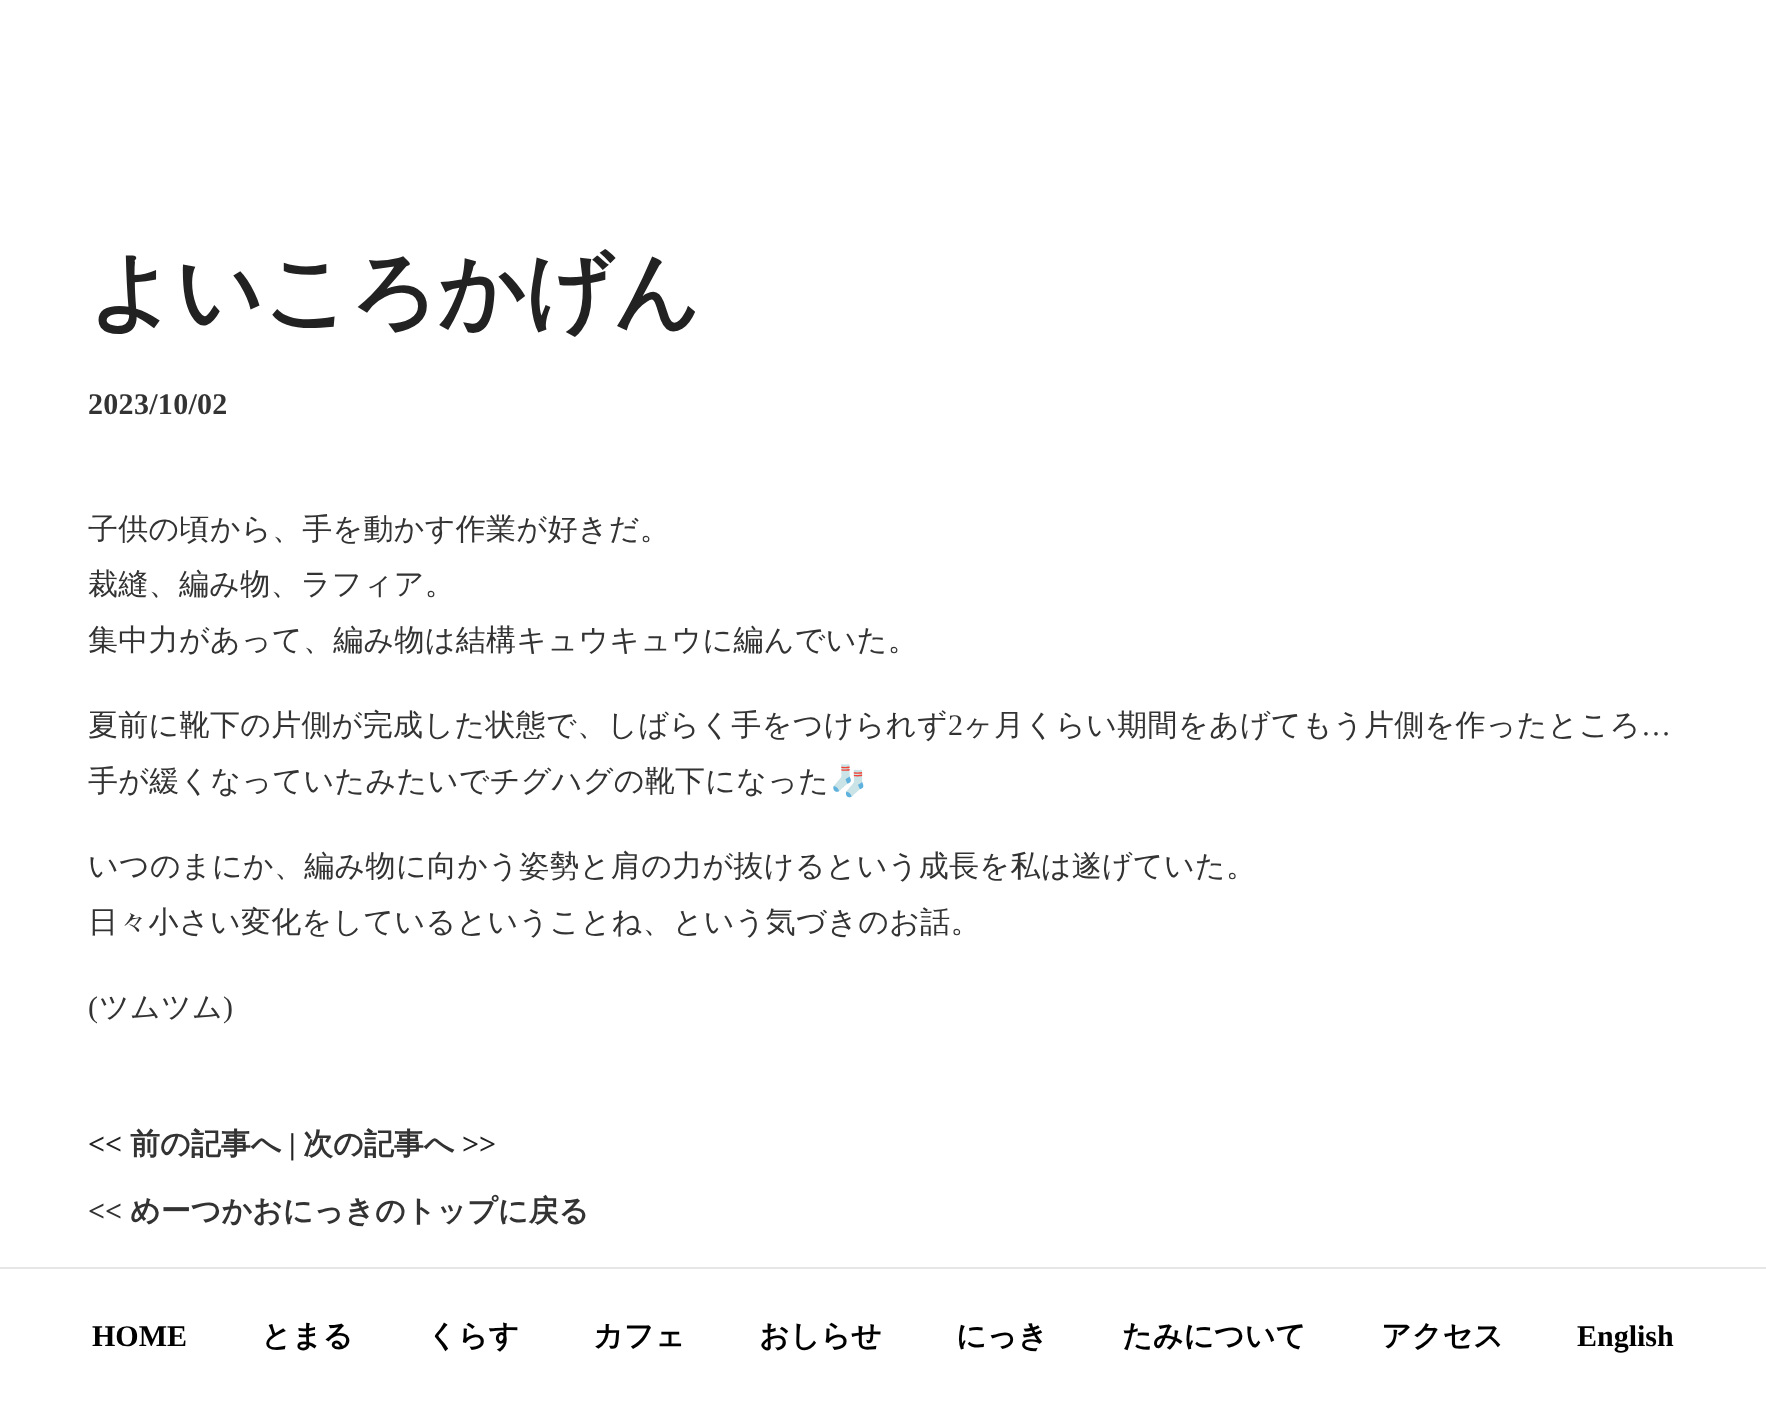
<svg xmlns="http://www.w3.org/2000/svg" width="1766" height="1405">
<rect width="100%" height="100%" fill="#fff"/>
<text x="88" y="321" style="font-family:WenQuanYi Zen Hei;font-size:85.5px;font-weight:bold;fill:#222">よいころかげん</text>
<text x="88" y="414" style="font-family:Liberation Serif;font-size:30px;font-weight:bold;letter-spacing:0.3px;fill:#333">2023/10/02</text>
<text x="88" y="539" style="font-family:WenQuanYi Zen Hei;font-size:30px;font-weight:500;letter-spacing:0.3px;fill:#333">子供の頃から、手を動かす作業が好きだ。</text>
<text x="88" y="594" style="font-family:WenQuanYi Zen Hei;font-size:30px;font-weight:500;letter-spacing:0.3px;fill:#333">裁縫、編み物、ラフィア。</text>
<text x="88" y="650" style="font-family:WenQuanYi Zen Hei;font-size:30px;font-weight:500;letter-spacing:0.3px;fill:#333">集中力があって、編み物は結構キュウキュウに編んでいた。</text>
<text x="88" y="735" style="font-family:WenQuanYi Zen Hei;font-size:30px;font-weight:500;letter-spacing:0.3px;fill:#333">夏前に靴下の片側が完成した状態で、しばらく手をつけられず</text>
<text x="948" y="735" style="font-family:Liberation Serif;font-size:30px;letter-spacing:0.3px;fill:#333">2</text>
<text x="963" y="735" style="font-family:WenQuanYi Zen Hei;font-size:30px;font-weight:500;letter-spacing:0.3px;fill:#333">ヶ月くらい期間をあげてもう片側を作ったところ</text>
<text x="1641" y="735" style="font-family:Liberation Serif;font-size:30px;letter-spacing:0.3px;fill:#333">…</text>
<text x="88" y="791" style="font-family:WenQuanYi Zen Hei;font-size:30px;font-weight:500;letter-spacing:0.3px;fill:#333">手が緩くなっていたみたいでチグハグの靴下になった</text>
<text x="830" y="791" style="font-family:Noto Color Emoji;font-size:30px;letter-spacing:0.3px;fill:#333">🧦</text>
<text x="88" y="876" style="font-family:WenQuanYi Zen Hei;font-size:30px;font-weight:500;letter-spacing:0.3px;fill:#333">いつのまにか、編み物に向かう姿勢と肩の力が抜けるという成長を私は遂げていた。</text>
<text x="88" y="932" style="font-family:WenQuanYi Zen Hei;font-size:30px;font-weight:500;letter-spacing:0.3px;fill:#333">日々小さい変化をしているということね、という気づきのお話。</text>
<text x="88" y="1017" style="font-family:Liberation Serif;font-size:30px;letter-spacing:0.3px;fill:#333">(</text>
<text x="99" y="1017" style="font-family:WenQuanYi Zen Hei;font-size:30px;font-weight:500;letter-spacing:0.3px;fill:#333">ツムツム</text>
<text x="223" y="1017" style="font-family:Liberation Serif;font-size:30px;letter-spacing:0.3px;fill:#333">)</text>
<text x="88" y="1154" style="font-family:Liberation Serif;font-size:30px;font-weight:bold;fill:#222">&lt;&lt;</text>
<text x="130" y="1154" style="font-family:WenQuanYi Zen Hei;font-size:30px;font-weight:bold;fill:#333">前の記事へ</text>
<text x="289" y="1154" style="font-family:Liberation Serif;font-size:30px;font-weight:bold;fill:#222">|</text>
<text x="303" y="1154" style="font-family:WenQuanYi Zen Hei;font-size:30px;font-weight:bold;fill:#333">次の記事へ</text>
<text x="462" y="1154" style="font-family:Liberation Serif;font-size:30px;font-weight:bold;fill:#222">&gt;&gt;</text>
<text x="88" y="1221" style="font-family:Liberation Serif;font-size:30px;font-weight:bold;fill:#333">&lt;&lt;</text>
<text x="130" y="1221" style="font-family:WenQuanYi Zen Hei;font-size:30px;font-weight:bold;fill:#333">めーつかおにっきのトップに戻る</text>
<rect y="1267" width="1766" height="2" fill="#e6e6e6"/>
<text x="92" y="1346" style="font-family:Liberation Serif;font-size:30px;font-weight:bold;fill:#000">HOME</text>
<text x="261" y="1346" style="font-family:WenQuanYi Zen Hei;font-size:30px;font-weight:bold;fill:#000">とまる</text>
<text x="427" y="1346" style="font-family:WenQuanYi Zen Hei;font-size:30px;font-weight:bold;fill:#000">くらす</text>
<text x="593" y="1346" style="font-family:WenQuanYi Zen Hei;font-size:30px;font-weight:bold;fill:#000">カフェ</text>
<text x="759" y="1346" style="font-family:WenQuanYi Zen Hei;font-size:30px;font-weight:bold;fill:#000">おしらせ</text>
<text x="956" y="1346" style="font-family:WenQuanYi Zen Hei;font-size:30px;font-weight:bold;fill:#000">にっき</text>
<text x="1122" y="1346" style="font-family:WenQuanYi Zen Hei;font-size:30px;font-weight:bold;fill:#000">たみについて</text>
<text x="1381" y="1346" style="font-family:WenQuanYi Zen Hei;font-size:30px;font-weight:bold;fill:#000">アクセス</text>
<text x="1577" y="1346" style="font-family:Liberation Serif;font-size:30px;font-weight:bold;fill:#000">English</text>
</svg>
